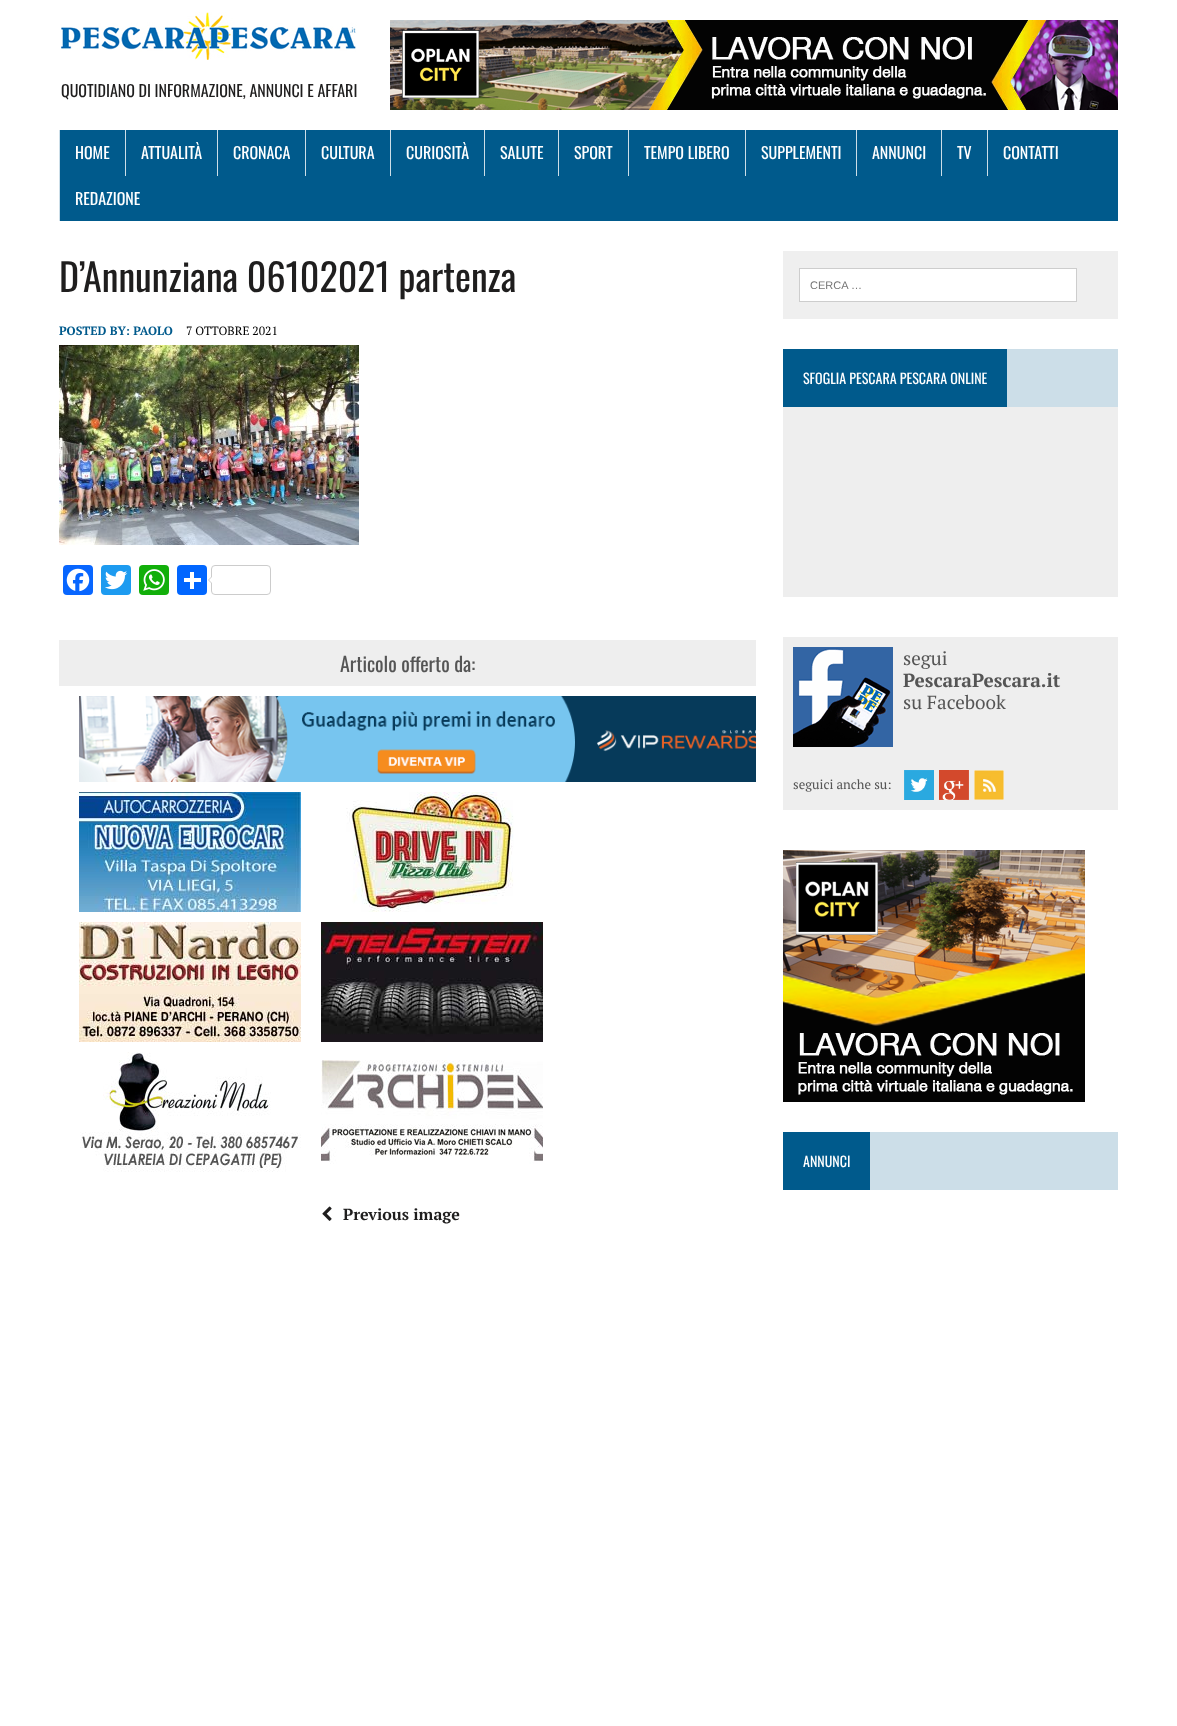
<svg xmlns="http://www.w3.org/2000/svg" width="1177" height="1726">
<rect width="100%" height="100%" fill="#fff"/>
<image x="60" y="12" width="297" height="48" href="media/1.png"/>
<text x="61" y="97" style="font-family:Oswald;font-size:16px;fill:#1f1e1e">QUOTIDIANO DI INFORMAZIONE, ANNUNCI E AFFARI</text>
<image x="390" y="20" width="728" height="90" href="media/2.png"/>
<rect x="60" y="130" width="1058" height="91" fill="#005a8c"/>
<rect x="59" y="130" width="1" height="91" fill="#ccdee8"/>
<text x="75" y="159" style="font-family:Oswald;font-size:16px;fill:#fff">HOME</text>
<rect x="125" y="130" width="1" height="46" fill="#ccdee8"/>
<text x="141" y="159" style="font-family:Oswald;font-size:16px;fill:#fff">ATTUALITÀ</text>
<rect x="217" y="130" width="1" height="46" fill="#ccdee8"/>
<text x="233" y="159" style="font-family:Oswald;font-size:16px;fill:#fff">CRONACA</text>
<rect x="305" y="130" width="1" height="46" fill="#ccdee8"/>
<text x="321" y="159" style="font-family:Oswald;font-size:16px;fill:#fff">CULTURA</text>
<rect x="390" y="130" width="1" height="46" fill="#ccdee8"/>
<text x="406" y="159" style="font-family:Oswald;font-size:16px;fill:#fff">CURIOSITÀ</text>
<rect x="484" y="130" width="1" height="46" fill="#ccdee8"/>
<text x="500" y="159" style="font-family:Oswald;font-size:16px;fill:#fff">SALUTE</text>
<rect x="558" y="130" width="1" height="46" fill="#ccdee8"/>
<text x="574" y="159" style="font-family:Oswald;font-size:16px;fill:#fff">SPORT</text>
<rect x="628" y="130" width="1" height="46" fill="#ccdee8"/>
<text x="644" y="159" style="font-family:Oswald;font-size:16px;fill:#fff">TEMPO LIBERO</text>
<rect x="745" y="130" width="1" height="46" fill="#ccdee8"/>
<text x="761" y="159" style="font-family:Oswald;font-size:16px;fill:#fff">SUPPLEMENTI</text>
<rect x="856" y="130" width="1" height="46" fill="#ccdee8"/>
<text x="872" y="159" style="font-family:Oswald;font-size:16px;fill:#fff">ANNUNCI</text>
<rect x="941" y="130" width="1" height="46" fill="#ccdee8"/>
<text x="957" y="159" style="font-family:Oswald;font-size:16px;fill:#fff">TV</text>
<rect x="987" y="130" width="1" height="46" fill="#ccdee8"/>
<text x="1003" y="159" style="font-family:Oswald;font-size:16px;fill:#fff">CONTATTI</text>
<text x="75" y="205" style="font-family:Oswald;font-size:16px;fill:#fff">REDAZIONE</text>
<text x="59" y="292" style="font-family:Oswald;font-size:38px;fill:#1f1e1e">D’Annunziana 06102021 partenza</text>
<text x="59" y="335" style="font-family:PT Serif;font-size:12px;font-weight:bold;fill:#005a8c">POSTED BY: PAOLO</text>
<text x="186" y="335" style="font-family:PT Serif;font-size:12px;fill:#000">7 OTTOBRE 2021</text>
<image x="59" y="345" width="300" height="200" href="media/3.png"/>
<rect x="63" y="565" width="30" height="30" rx="4" fill="#0866ff"/>
<image x="66" y="568" width="24" height="24" href="media/4.png"/>
<rect x="101" y="565" width="30" height="30" rx="4" fill="#1d9bf0"/>
<image x="105" y="570" width="23" height="20" href="media/5.png"/>
<rect x="139" y="565" width="30" height="30" rx="4" fill="#12af0a"/>
<image x="143" y="569" width="22" height="22" href="media/6.png"/>
<rect x="177" y="565" width="30" height="30" rx="4" fill="#0166ff"/>
<rect x="190" y="572" width="4" height="17" fill="#fff"/>
<rect x="184" y="578" width="17" height="4" fill="#fff"/>
<rect x="211.5" y="565.5" width="59" height="29" rx="3.5" fill="none" stroke="#ccc"/>
<path d="M212 576v8l-4-4z" fill="#ccc"/>
<path d="M213 576v8l-4-4z" fill="#fff"/>
<rect x="59" y="640" width="697" height="46" fill="#eee"/>
<text x="340" y="672" style="font-family:Oswald;font-size:20px;fill:#555">Articolo offerto da:</text>
<image x="79" y="696" width="677" height="86" href="media/7.png"/>
<image x="79" y="792" width="222" height="120" href="media/8.png"/>
<image x="346" y="792" width="168" height="120" href="media/9.png"/>
<image x="79" y="922" width="222" height="120" href="media/10.png"/>
<image x="321" y="922" width="222" height="120" href="media/11.png"/>
<image x="80" y="1052" width="221" height="120" href="media/12.png"/>
<image x="321" y="1060" width="222" height="104" href="media/13.png"/>
<image x="322" y="1206" width="10" height="15" href="media/14.png"/>
<text x="343" y="1220" style="font-family:PT Serif;font-size:16px;font-weight:bold;fill:#1f1e1e">Previous image</text>
<rect x="783" y="251" width="335" height="68" fill="#efefef"/>
<rect x="799.5" y="268.5" width="277" height="33" fill="#fff" stroke="#cdcdcd"/>
<text x="810" y="289" style="font-family:Liberation Sans;font-size:11px;fill:#757575">CERCA …</text>
<rect x="1007" y="349" width="111" height="58" fill="#ccdee8"/>
<rect x="783" y="349" width="224" height="58" fill="#005a8c"/>
<text x="803" y="384" style="font-family:Oswald;font-size:14px;fill:#fff">SFOGLIA PESCARA PESCARA ONLINE</text>
<rect x="783" y="407" width="335" height="190" fill="#eee"/>
<rect x="783" y="637" width="335" height="173" fill="#eee"/>
<image x="793" y="647" width="100" height="100" href="media/15.png"/>
<text x="903" y="665" style="font-family:PT Serif;font-size:19px;fill:#555">segui</text>
<text x="903" y="687" style="font-family:PT Serif;font-size:19px;font-weight:bold;fill:#555">PescaraPescara.it</text>
<text x="903" y="709" style="font-family:PT Serif;font-size:19px;fill:#555">su Facebook</text>
<text x="793" y="789" style="font-family:PT Serif;font-size:13px;fill:#555">seguici anche su:</text>
<image x="904" y="770" width="30" height="30" href="media/16.png"/>
<image x="939" y="770" width="30" height="30" href="media/17.png"/>
<image x="974" y="770" width="30" height="30" href="media/18.png"/>
<image x="783" y="850" width="302" height="252" href="media/19.png"/>
<rect x="870" y="1132" width="248" height="58" fill="#ccdee8"/>
<rect x="783" y="1132" width="87" height="58" fill="#005a8c"/>
<text x="803" y="1167" style="font-family:Oswald;font-size:14px;fill:#fff">ANNUNCI</text>
</svg>
